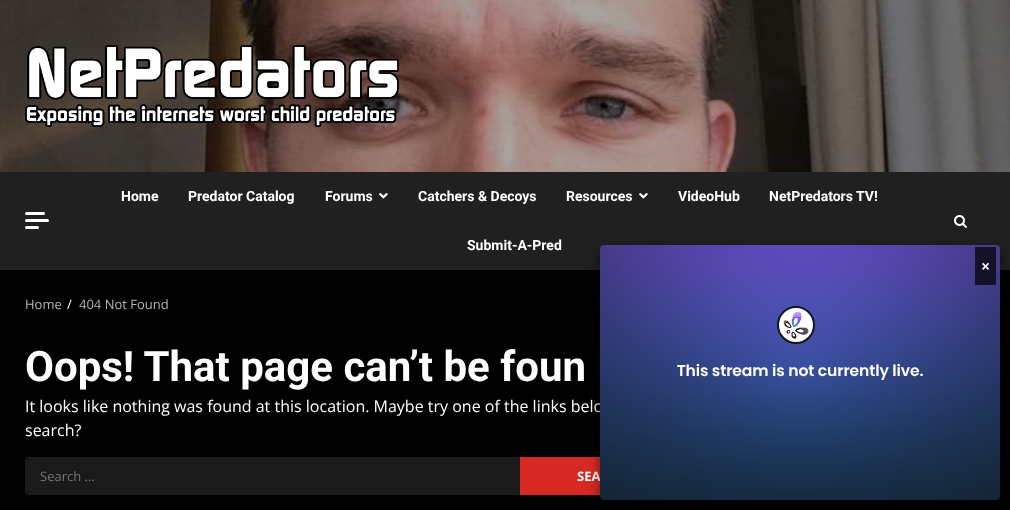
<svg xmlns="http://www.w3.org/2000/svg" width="1010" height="510">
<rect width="100%" height="100%" fill="#000"/>
<image x="0" y="0" width="1010" height="172" href="media/1.png"/>
<image x="25" y="45" width="374" height="82" href="media/2.png"/>
<rect y="172" width="1010" height="98" fill="#202020"/>
<rect x="25" y="212" width="20" height="3" rx="1.5" fill="#fff"/>
<rect x="25" y="219" width="24" height="3" rx="1.5" fill="#fff"/>
<rect x="25" y="226" width="14" height="3" rx="1.5" fill="#fff"/>
<text x="121" y="201" style="font-family:Roboto;font-size:14px;font-weight:bold;fill:#fff">Home</text>
<text x="188" y="201" style="font-family:Roboto;font-size:14px;font-weight:bold;fill:#fff">Predator Catalog</text>
<text x="325" y="201" style="font-family:Roboto;font-size:14px;font-weight:bold;fill:#fff">Forums</text>
<image x="379" y="193" width="9" height="6" href="media/3.png"/>
<text x="418" y="201" style="font-family:Roboto;font-size:14px;font-weight:bold;fill:#fff">Catchers &amp; Decoys</text>
<text x="566" y="201" style="font-family:Roboto;font-size:14px;font-weight:bold;fill:#fff">Resources</text>
<image x="639" y="193" width="9" height="6" href="media/3.png"/>
<text x="678" y="201" style="font-family:Roboto;font-size:14px;font-weight:bold;fill:#fff">VideoHub</text>
<text x="769" y="201" style="font-family:Roboto;font-size:14px;font-weight:bold;fill:#fff">NetPredators TV!</text>
<text x="467" y="250" style="font-family:Roboto;font-size:14px;font-weight:bold;fill:#fff">Submit-A-Pred</text>
<image x="954" y="215" width="13" height="13" href="media/4.png"/>
<text x="25" y="309" style="font-family:Open Sans;font-size:13px;fill:#b3b3b3">Home</text>
<text x="67" y="309" style="font-family:Open Sans;font-size:13px;fill:#fff">/</text>
<text x="79" y="309" style="font-family:Open Sans;font-size:13px;fill:#b3b3b3">404 Not Found</text>
<text x="25" y="381" style="font-family:Roboto;font-size:42px;font-weight:bold;fill:#fff">Oops! That page can’t be foun</text>
<text x="25" y="412" style="font-family:Open Sans;font-size:16px;fill:#fff">It looks like nothing was found at this location. Maybe try one of the links belo</text>
<text x="25" y="436" style="font-family:Open Sans;font-size:16px;fill:#fff">search?</text>
<path d="M28 457h492v38h-492c-1.5 0-3-1.5-3-3v-32c0-1.5 1.5-3 3-3z" fill="#1a1a1a"/>
<text x="40" y="481" style="font-family:Open Sans;font-size:13px;fill:#757575">Search …</text>
<rect x="520" y="457" width="80" height="38" fill="#d72924"/>
<text x="577" y="481" style="font-family:Open Sans;font-size:13px;font-weight:bold;fill:#fff">SEA</text>
<rect x="600" y="249" width="400" height="255" rx="4" fill="#00000080" filter="blur(6px)"/>
<image x="600" y="245" width="400" height="255" href="media/5.png"/>
<rect x="975" y="247" width="21" height="38" fill="#000000b3"/>
<text x="981" y="272" style="font-family:Open Sans;font-size:16px;font-weight:bold;fill:#fff">×</text>
</svg>
